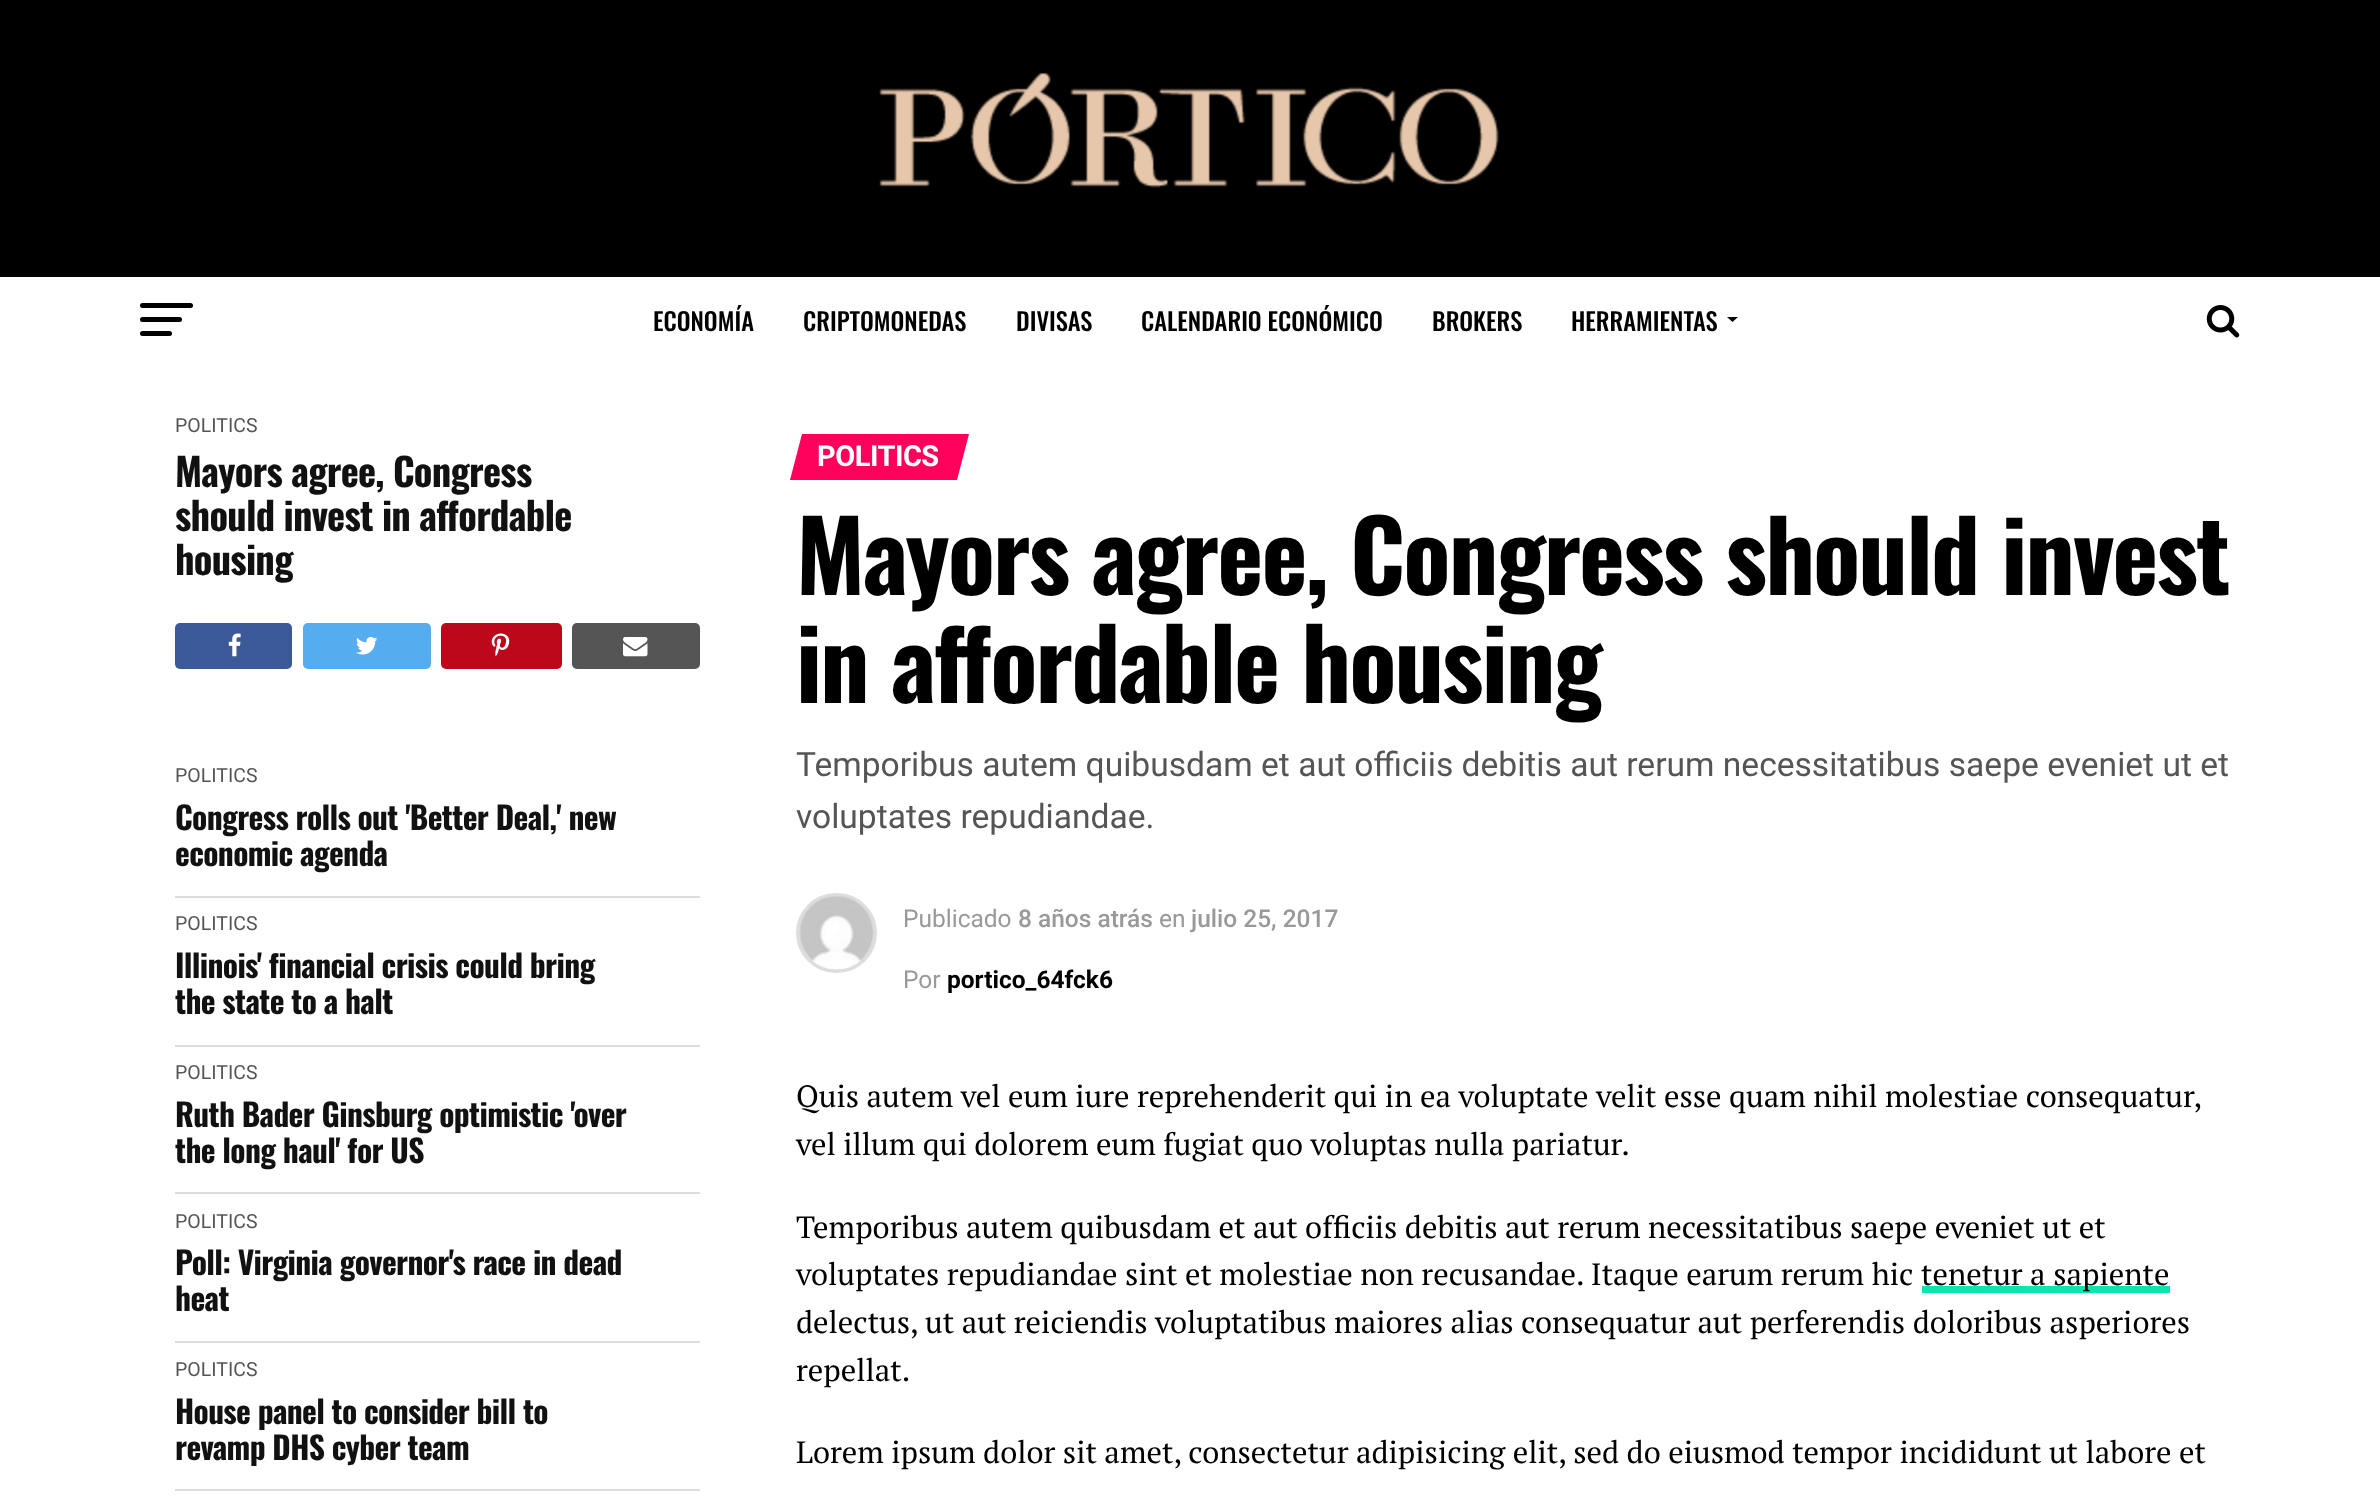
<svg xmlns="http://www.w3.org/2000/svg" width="2380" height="1499">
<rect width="100%" height="100%" fill="#fff"/>
<rect width="2380" height="277" fill="#000"/>
<image x="879" y="72" width="620" height="116" href="media/1.png"/>
<rect x="140" y="303" width="53" height="5" rx="2.5" fill="#000"/>
<rect x="140" y="317" width="42" height="5" rx="2.5" fill="#000"/>
<rect x="140" y="331" width="32" height="5" rx="2.5" fill="#000"/>
<text x="653" y="331" style="font-family:Oswald;font-size:24.5px;font-weight:500;fill:#000">ECONOMÍA</text>
<text x="803" y="331" style="font-family:Oswald;font-size:24.5px;font-weight:500;fill:#000">CRIPTOMONEDAS</text>
<text x="1016" y="331" style="font-family:Oswald;font-size:24.5px;font-weight:500;fill:#000">DIVISAS</text>
<text x="1141" y="331" style="font-family:Oswald;font-size:24.5px;font-weight:500;fill:#000">CALENDARIO ECONÓMICO</text>
<text x="1432" y="331" style="font-family:Oswald;font-size:24.5px;font-weight:500;fill:#000">BROKERS</text>
<text x="1571" y="331" style="font-family:Oswald;font-size:24.5px;font-weight:500;fill:#000">HERRAMIENTAS</text>
<path d="M1727 317h11l-5.5 5z" fill="#000"/>
<image x="2206" y="305" width="34" height="33" href="media/2.png"/>
<text x="175" y="432" style="font-family:Roboto;font-size:19.5px;fill:#555">POLITICS</text>
<text x="175" y="487" style="font-family:Oswald;font-size:38.5px;font-weight:bold;letter-spacing:-0.75px;fill:#111">Mayors agree, Congress</text>
<text x="175" y="531" style="font-family:Oswald;font-size:38.5px;font-weight:bold;letter-spacing:-0.75px;fill:#111">should invest in affordable</text>
<text x="175" y="575" style="font-family:Oswald;font-size:38.5px;font-weight:bold;letter-spacing:-0.75px;fill:#111">housing</text>
<rect x="175" y="623" width="117" height="46" rx="5" fill="#3b5998"/>
<image x="228" y="633" width="13" height="24" href="media/3.png"/>
<rect x="303" y="623" width="128" height="46" rx="5" fill="#55acee"/>
<image x="356" y="637" width="22" height="18" href="media/4.png"/>
<rect x="441" y="623" width="121" height="46" rx="5" fill="#bd081c"/>
<image x="491" y="633" width="19" height="24" href="media/5.png"/>
<rect x="572" y="623" width="128" height="46" rx="5" fill="#555"/>
<image x="623" y="637" width="25" height="20" href="media/6.png"/>
<rect x="175" y="896" width="525" height="2" fill="#ddd"/>
<text x="175" y="782" style="font-family:Roboto;font-size:19.5px;fill:#555">POLITICS</text>
<text x="175" y="830" style="font-family:Oswald;font-size:31.5px;font-weight:bold;letter-spacing:-0.65px;fill:#111">Congress rolls out 'Better Deal,' new</text>
<text x="175" y="866" style="font-family:Oswald;font-size:31.5px;font-weight:bold;letter-spacing:-0.65px;fill:#111">economic agenda</text>
<rect x="175" y="1045" width="525" height="2" fill="#ddd"/>
<text x="175" y="930" style="font-family:Roboto;font-size:19.5px;fill:#555">POLITICS</text>
<text x="175" y="978" style="font-family:Oswald;font-size:31.5px;font-weight:bold;letter-spacing:-0.65px;fill:#111">Illinois' financial crisis could bring</text>
<text x="175" y="1014" style="font-family:Oswald;font-size:31.5px;font-weight:bold;letter-spacing:-0.65px;fill:#111">the state to a halt</text>
<rect x="175" y="1192" width="525" height="2" fill="#ddd"/>
<text x="175" y="1079" style="font-family:Roboto;font-size:19.5px;fill:#555">POLITICS</text>
<text x="175" y="1127" style="font-family:Oswald;font-size:31.5px;font-weight:bold;letter-spacing:-0.65px;fill:#111">Ruth Bader Ginsburg optimistic 'over</text>
<text x="175" y="1163" style="font-family:Oswald;font-size:31.5px;font-weight:bold;letter-spacing:-0.65px;fill:#111">the long haul' for US</text>
<rect x="175" y="1341" width="525" height="2" fill="#ddd"/>
<text x="175" y="1228" style="font-family:Roboto;font-size:19.5px;fill:#555">POLITICS</text>
<text x="175" y="1275" style="font-family:Oswald;font-size:31.5px;font-weight:bold;letter-spacing:-0.65px;fill:#111">Poll: Virginia governor's race in dead</text>
<text x="175" y="1311" style="font-family:Oswald;font-size:31.5px;font-weight:bold;letter-spacing:-0.65px;fill:#111">heat</text>
<rect x="175" y="1489" width="525" height="2" fill="#ddd"/>
<text x="175" y="1376" style="font-family:Roboto;font-size:19.5px;fill:#555">POLITICS</text>
<text x="175" y="1424" style="font-family:Oswald;font-size:31.5px;font-weight:bold;letter-spacing:-0.65px;fill:#111">House panel to consider bill to</text>
<text x="175" y="1460" style="font-family:Oswald;font-size:31.5px;font-weight:bold;letter-spacing:-0.65px;fill:#111">revamp DHS cyber team</text>
<path d="M802 434h167l-12 46h-167z" fill="#ff005b"/>
<text x="817" y="466" style="font-family:Roboto;font-size:29px;font-weight:bold;letter-spacing:-0.5px;fill:#fff">POLITICS</text>
<text x="796" y="595" style="font-family:Oswald;font-size:98px;font-weight:bold;letter-spacing:-1.95px;fill:#000">Mayors agree, Congress should invest</text>
<text x="796" y="703" style="font-family:Oswald;font-size:98px;font-weight:bold;letter-spacing:-1.95px;fill:#000">in affordable housing</text>
<text x="796" y="776" style="font-family:Roboto;font-size:33.6px;fill:#555">Temporibus autem quibusdam et aut officiis debitis aut rerum necessitatibus saepe eveniet ut et</text>
<text x="796" y="828" style="font-family:Roboto;font-size:33.6px;fill:#555">voluptates repudiandae.</text>
<rect x="798" y="895" width="77" height="76" rx="38" fill="none" stroke="#ddd" stroke-width="4"/>
<image x="799" y="896" width="75" height="74" href="media/7.png"/>
<text x="903" y="927" style="font-family:Roboto;font-size:24.5px;fill:#999">Publicado</text>
<text x="1018" y="927" style="font-family:Roboto;font-size:24.5px;font-weight:500;fill:#999">8 años atrás</text>
<text x="1159" y="927" style="font-family:Roboto;font-size:24.5px;fill:#999">en</text>
<text x="1191" y="927" style="font-family:Roboto;font-size:24.5px;font-weight:500;fill:#999">julio 25, 2017</text>
<text x="903" y="988" style="font-family:Roboto;font-size:24.5px;fill:#999">Por</text>
<text x="947" y="988" style="font-family:Roboto;font-size:24.5px;font-weight:bold;fill:#000">portico_64fck6</text>
<text x="796" y="1107" style="font-family:PT Serif;font-size:30.8px;fill:#000">Quis autem vel eum iure reprehenderit qui in ea voluptate velit esse quam nihil molestiae consequatur,</text>
<text x="796" y="1155" style="font-family:PT Serif;font-size:30.8px;fill:#000">vel illum qui dolorem eum fugiat quo voluptas nulla pariatur.</text>
<text x="796" y="1238" style="font-family:PT Serif;font-size:30.8px;fill:#000">Temporibus autem quibusdam et aut officiis debitis aut rerum necessitatibus saepe eveniet ut et</text>
<text x="796" y="1285" style="font-family:PT Serif;font-size:30.8px;fill:#000">voluptates repudiandae sint et molestiae non recusandae. Itaque earum rerum hic</text>
<rect x="1922" y="1286" width="248" height="7" fill="#0be6af"/>
<text x="1921" y="1285" style="font-family:PT Serif;font-size:30.8px;fill:#000">tenetur a sapiente</text>
<text x="796" y="1333" style="font-family:PT Serif;font-size:30.8px;fill:#000">delectus, ut aut reiciendis voluptatibus maiores alias consequatur aut perferendis doloribus asperiores</text>
<text x="796" y="1381" style="font-family:PT Serif;font-size:30.8px;fill:#000">repellat.</text>
<text x="796" y="1463" style="font-family:PT Serif;font-size:30.8px;fill:#000">Lorem ipsum dolor sit amet, consectetur adipisicing elit, sed do eiusmod tempor incididunt ut labore et</text>
</svg>
